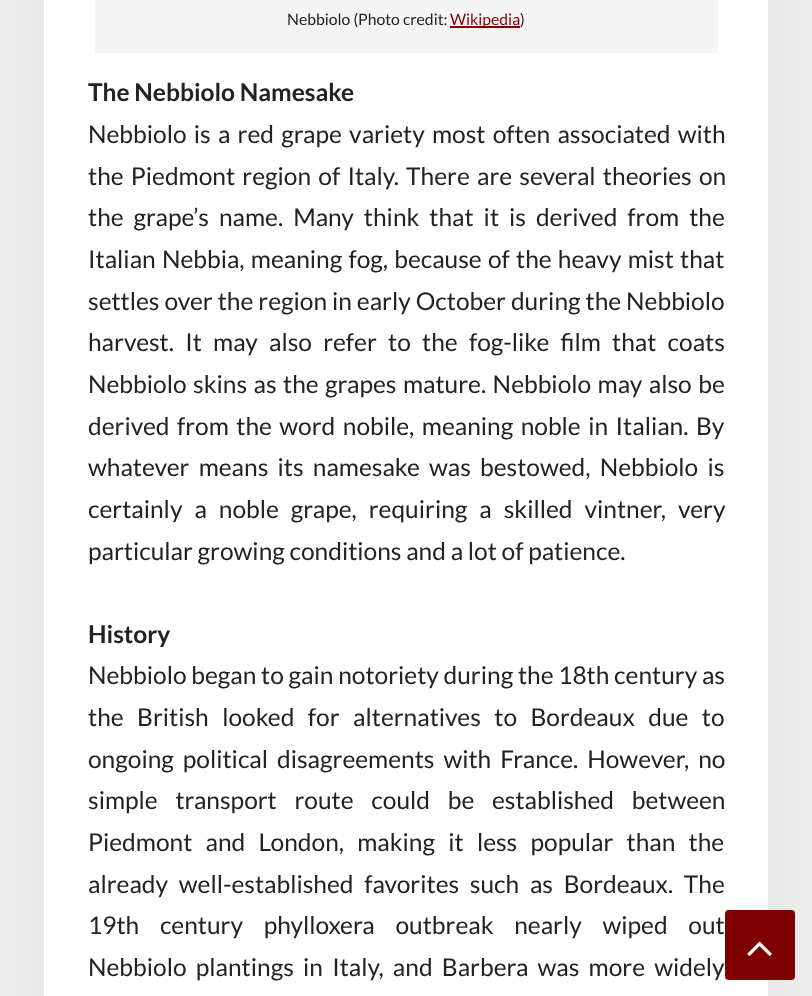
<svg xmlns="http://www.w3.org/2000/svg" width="812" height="996">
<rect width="100%" height="100%" fill="#eee"/>
<rect x="44" y="-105" width="724" height="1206" fill="#0000000d" filter="blur(35px)"/>
<rect x="44" width="724" height="996" fill="#fff"/>
<rect x="95" width="623" height="53" fill="#f5f5f5"/>
<text x="287" y="25" style="font-family:Lato;font-size:15.75px;fill:#222">Nebbiolo (Photo credit:</text>
<rect x="450" y="26" width="70" height="2" fill="#800000"/>
<text x="450" y="25" style="font-family:Lato;font-size:15.75px;fill:#800000">Wikipedia</text>
<text x="520" y="25" style="font-family:Lato;font-size:15.75px;fill:#222">)</text>
<text x="88" y="101" style="font-family:Lato;font-size:24.5px;font-weight:bold;fill:#222">The Nebbiolo Namesake</text>
<text x="88" y="143" word-spacing="2.5" style="font-family:Lato;font-size:24.5px;fill:#222">Nebbiolo is a red grape variety most often associated with</text>
<text x="88" y="185" word-spacing="2.5" style="font-family:Lato;font-size:24.5px;fill:#222">the Piedmont region of Italy. There are several theories on</text>
<text x="88" y="226" word-spacing="5.25" style="font-family:Lato;font-size:24.5px;fill:#222">the grape’s name. Many think that it is derived from the</text>
<text x="88" y="268" word-spacing="1.5" style="font-family:Lato;font-size:24.5px;fill:#222">Italian Nebbia, meaning fog, because of the heavy mist that</text>
<text x="88" y="310" word-spacing="0.25" style="font-family:Lato;font-size:24.5px;fill:#222">settles over the region in early October during the Nebbiolo</text>
<text x="88" y="351" word-spacing="6.5" style="font-family:Lato;font-size:24.5px;fill:#222">harvest. It may also refer to the fog-like film that coats</text>
<text x="88" y="393" word-spacing="1.75" style="font-family:Lato;font-size:24.5px;fill:#222">Nebbiolo skins as the grapes mature. Nebbiolo may also be</text>
<text x="88" y="435" word-spacing="2.75" style="font-family:Lato;font-size:24.5px;fill:#222">derived from the word nobile, meaning noble in Italian. By</text>
<text x="88" y="476" word-spacing="4.5" style="font-family:Lato;font-size:24.5px;fill:#222">whatever means its namesake was bestowed, Nebbiolo is</text>
<text x="88" y="518" word-spacing="7.25" style="font-family:Lato;font-size:24.5px;fill:#222">certainly a noble grape, requiring a skilled vintner, very</text>
<text x="88" y="560" style="font-family:Lato;font-size:24.5px;fill:#222">particular growing conditions and a lot of patience.</text>
<text x="88" y="643" style="font-family:Lato;font-size:24.5px;font-weight:bold;fill:#222">History</text>
<text x="88" y="684" style="font-family:Lato;font-size:24.5px;fill:#222">Nebbiolo began to gain notoriety during the 18th century as</text>
<text x="88" y="726" word-spacing="8.75" style="font-family:Lato;font-size:24.5px;fill:#222">the British looked for alternatives to Bordeaux due to</text>
<text x="88" y="768" word-spacing="4.25" style="font-family:Lato;font-size:24.5px;fill:#222">ongoing political disagreements with France. However, no</text>
<text x="88" y="809" word-spacing="13" style="font-family:Lato;font-size:24.5px;fill:#222">simple transport route could be established between</text>
<text x="88" y="851" word-spacing="8.5" style="font-family:Lato;font-size:24.5px;fill:#222">Piedmont and London, making it less popular than the</text>
<text x="88" y="893" word-spacing="6" style="font-family:Lato;font-size:24.5px;fill:#222">already well-established favorites such as Bordeaux. The</text>
<text x="88" y="934" word-spacing="16" style="font-family:Lato;font-size:24.5px;fill:#222">19th century phylloxera outbreak nearly wiped out</text>
<text x="88" y="976" word-spacing="4.5" style="font-family:Lato;font-size:24.5px;fill:#222">Nebbiolo plantings in Italy, and Barbera was more widely</text>
<rect x="725" y="910" width="70" height="70" rx="4" fill="#800000"/>
<image x="747" y="941" width="25" height="15" href="media/1.png"/>
</svg>
